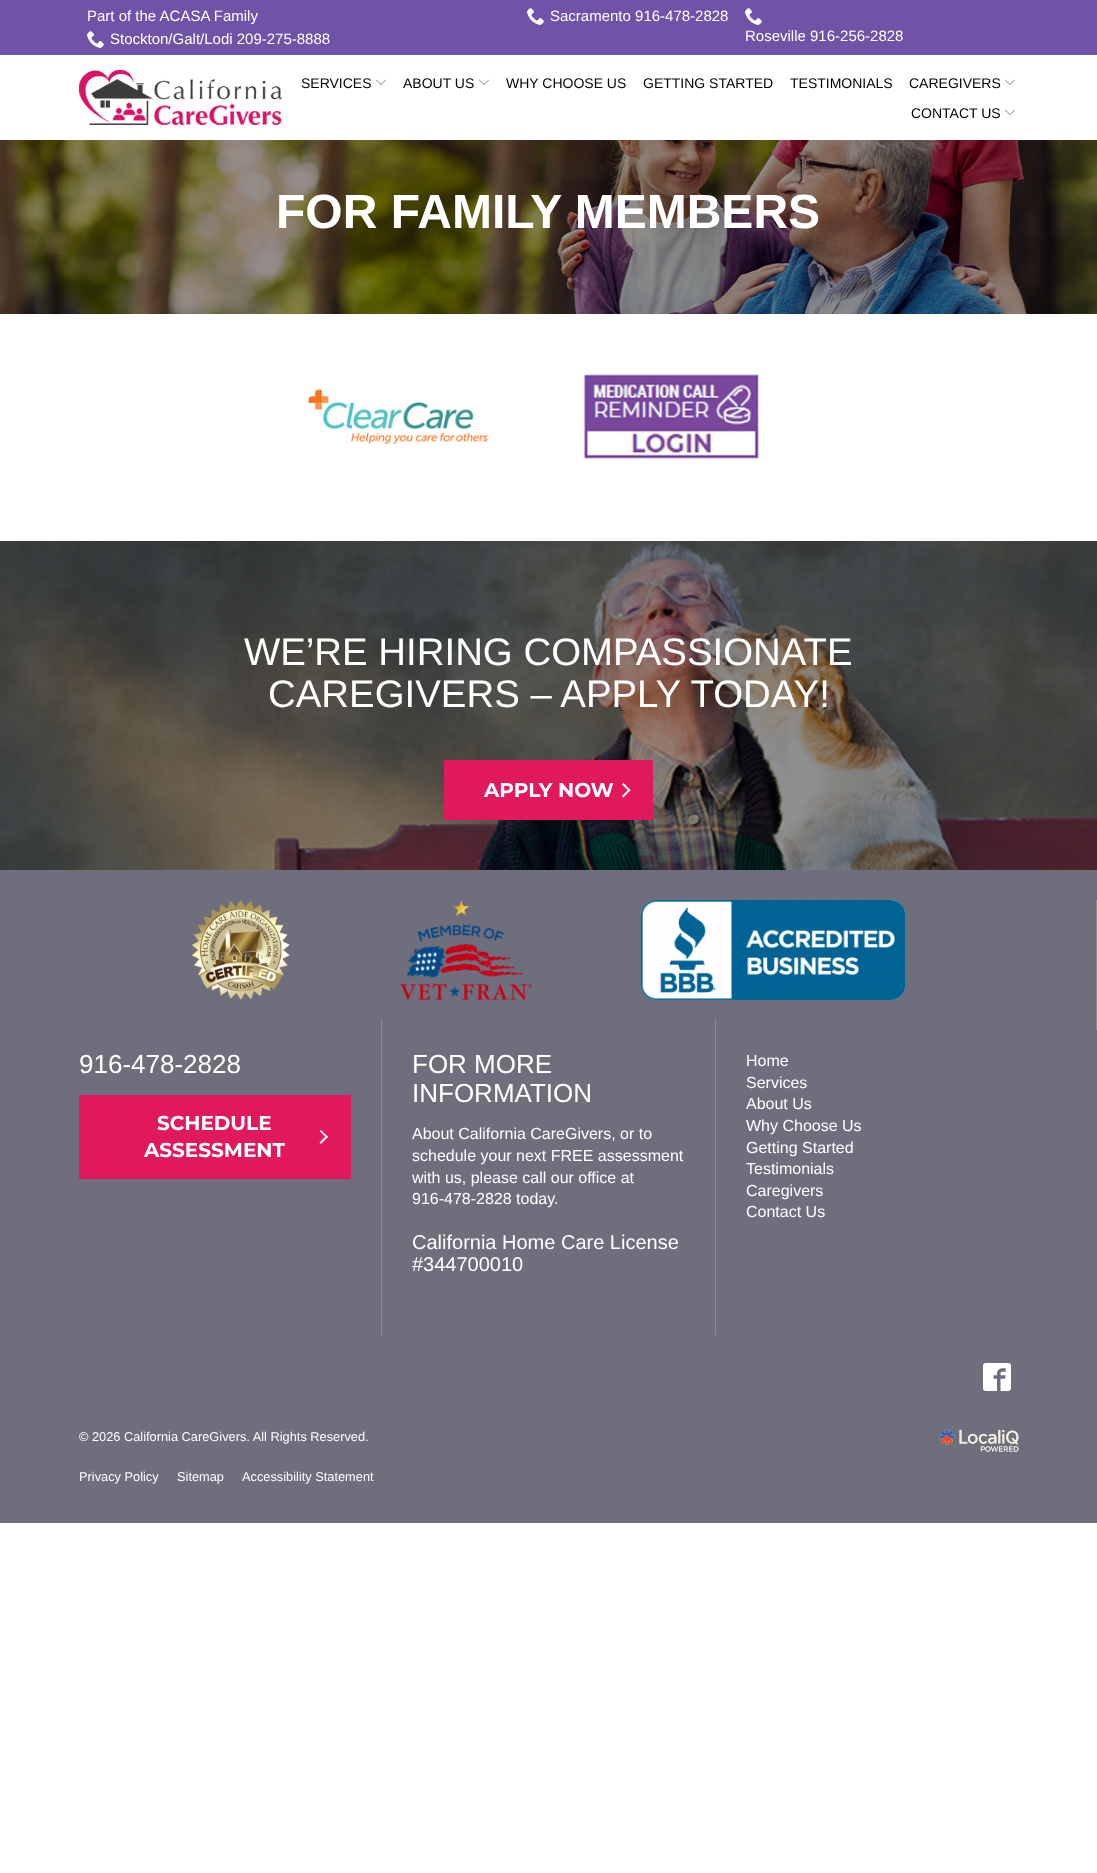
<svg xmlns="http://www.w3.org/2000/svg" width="1097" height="1873">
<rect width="100%" height="100%" fill="#fff"/>
<rect width="1097" height="55" fill="#7053a7"/>
<text x="87" y="21" style="font-family:Liberation Sans;font-size:15px;fill:#fff">Part of the ACASA Family</text>
<image x="527" y="8" width="17" height="17" href="media/1.png"/>
<text x="550" y="21" style="font-family:Liberation Sans;font-size:15px;fill:#fff">Sacramento 916-478-2828</text>
<image x="87" y="31" width="17" height="17" href="media/1.png"/>
<text x="110" y="44" style="font-family:Liberation Sans;font-size:15px;fill:#fff">Stockton/Galt/Lodi 209-275-8888</text>
<image x="745" y="8" width="17" height="17" href="media/1.png"/>
<text x="745" y="41" style="font-family:Liberation Sans;font-size:15px;fill:#fff">Roseville 916-256-2828</text>
<image x="78" y="70" width="204" height="55" href="media/2.png"/>
<text x="301" y="88" style="font-family:Liberation Sans;font-size:14px;fill:#010101">SERVICES</text>
<image x="376" y="79" width="10" height="6" href="media/3.png"/>
<text x="403" y="88" style="font-family:Liberation Sans;font-size:14px;fill:#010101">ABOUT US</text>
<image x="479" y="79" width="10" height="6" href="media/3.png"/>
<text x="506" y="88" style="font-family:Liberation Sans;font-size:14px;fill:#010101">WHY CHOOSE US</text>
<text x="643" y="88" style="font-family:Liberation Sans;font-size:14px;fill:#010101">GETTING STARTED</text>
<text x="790" y="88" style="font-family:Liberation Sans;font-size:14px;fill:#010101">TESTIMONIALS</text>
<text x="909" y="88" style="font-family:Liberation Sans;font-size:14px;fill:#010101">CAREGIVERS</text>
<image x="1005" y="79" width="10" height="6" href="media/3.png"/>
<text x="911" y="118" style="font-family:Liberation Sans;font-size:14px;fill:#010101">CONTACT US</text>
<image x="1005" y="109" width="10" height="6" href="media/3.png"/>
<image x="0" y="140" width="1097" height="174" href="media/4.png"/>
<text x="276" y="228" style="font-family:Liberation Sans;font-size:48px;font-weight:bold;fill:#fff">FOR FAMILY MEMBERS</text>
<image x="307" y="388" width="182" height="57" href="media/5.png"/>
<image x="583" y="374" width="176" height="85" href="media/6.png"/>
<image x="0" y="541" width="1097" height="329" href="media/7.png"/>
<text x="244" y="665" style="font-family:Liberation Sans;font-size:38.4px;fill:#fff">WE’RE HIRING COMPASSIONATE</text>
<text x="268" y="707" style="font-family:Liberation Sans;font-size:38.4px;fill:#fff">CAREGIVERS – APPLY TODAY!</text>
<rect x="444" y="760" width="209" height="60" fill="#e1185e"/>
<text x="484" y="797" style="font-family:Montserrat;font-size:20px;font-weight:bold;fill:#fff">APPLY NOW</text>
<path d="M623.5 783l7 7l-1.5 1.5l-7-7z" fill="#fff"/>
<path d="M629 789l1.5 1l-7 7.5l-1.5-1.5z" fill="#fff"/>
<rect y="870" width="1097" height="653" fill="#6f6e7c"/>
<rect x="1096" y="900" width="1" height="130" fill="#8c8b96"/>
<image x="191" y="900" width="99" height="100" href="media/8.png"/>
<image x="400" y="900" width="132" height="100" href="media/9.png"/>
<image x="641" y="900" width="264" height="100" href="media/10.png"/>
<rect x="381" y="1020" width="1" height="315" fill="#8c8b96"/>
<text x="79" y="1073" style="font-family:Liberation Sans;font-size:26px;fill:#fff">916-478-2828</text>
<rect x="79" y="1095" width="272" height="84" fill="#e1185e"/>
<text x="157" y="1130" style="font-family:Montserrat;font-size:20px;font-weight:bold;fill:#fff">SCHEDULE</text>
<path d="M321 1130l7 7l-1.5 1l-7-7z" fill="#fff"/>
<path d="M326.5 1135.5l1.5 1.5l-7 7l-1.5-1.5z" fill="#fff"/>
<text x="144" y="1157" style="font-family:Montserrat;font-size:20px;font-weight:bold;fill:#fff">ASSESSMENT</text>
<text x="412" y="1073" style="font-family:Liberation Sans;font-size:26px;fill:#fff">FOR MORE</text>
<text x="412" y="1102" style="font-family:Liberation Sans;font-size:26px;fill:#fff">INFORMATION</text>
<text x="412" y="1139" style="font-family:Liberation Sans;font-size:16px;fill:#fff">About California CareGivers, or to</text>
<text x="412" y="1161" style="font-family:Liberation Sans;font-size:16px;fill:#fff">schedule your next FREE assessment</text>
<text x="412" y="1183" style="font-family:Liberation Sans;font-size:16px;fill:#fff">with us, please call our office at</text>
<text x="412" y="1204" style="font-family:Liberation Sans;font-size:16px;fill:#fff">916-478-2828 today.</text>
<text x="412" y="1249" style="font-family:Liberation Sans;font-size:20px;fill:#fff">California Home Care License</text>
<text x="412" y="1271" style="font-family:Liberation Sans;font-size:20px;fill:#fff">#344700010</text>
<rect x="715" y="1020" width="1" height="315" fill="#8c8b96"/>
<text x="746" y="1066" style="font-family:Liberation Sans;font-size:16px;fill:#fff">Home</text>
<text x="746" y="1088" style="font-family:Liberation Sans;font-size:16px;fill:#fff">Services</text>
<text x="746" y="1109" style="font-family:Liberation Sans;font-size:16px;fill:#fff">About Us</text>
<text x="746" y="1131" style="font-family:Liberation Sans;font-size:16px;fill:#fff">Why Choose Us</text>
<text x="746" y="1153" style="font-family:Liberation Sans;font-size:16px;fill:#fff">Getting Started</text>
<text x="746" y="1174" style="font-family:Liberation Sans;font-size:16px;fill:#fff">Testimonials</text>
<text x="746" y="1196" style="font-family:Liberation Sans;font-size:16px;fill:#fff">Caregivers</text>
<text x="746" y="1217" style="font-family:Liberation Sans;font-size:16px;fill:#fff">Contact Us</text>
<image x="983" y="1363" width="28" height="28" href="media/11.png"/>
<text x="79" y="1441" style="font-family:Liberation Sans;font-size:12.8px;fill:#fff">© 2026 California CareGivers. All Rights Reserved.</text>
<text x="79" y="1481" style="font-family:Liberation Sans;font-size:12.8px;fill:#fff">Privacy Policy</text>
<text x="177" y="1481" style="font-family:Liberation Sans;font-size:12.8px;fill:#fff">Sitemap</text>
<text x="242" y="1481" style="font-family:Liberation Sans;font-size:12.8px;fill:#fff">Accessibility Statement</text>
<image x="939" y="1429" width="80" height="23" href="media/12.png"/>
</svg>
